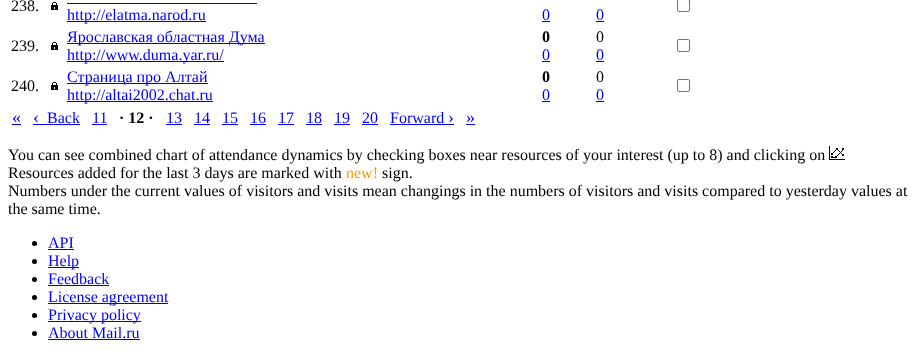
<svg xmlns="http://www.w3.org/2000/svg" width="920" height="364">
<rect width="100%" height="100%" fill="#fff"/>
<text x="11" y="11" style="font-family:Liberation Serif;font-size:16px;fill:#000">238.</text>
<image x="51" y="2" width="7" height="8" href="media/1.png"/>
<rect x="677.5" y="-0.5" width="12" height="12" rx="1.5" fill="none" stroke="#767676"/>
<rect x="67" y="3" width="190" height="1" fill="#00e"/>
<rect x="67" y="21" width="139" height="1" fill="#00e"/>
<text x="67" y="20" style="font-family:Liberation Serif;font-size:16px;fill:#00e">http://elatma.narod.ru</text>
<text x="542" y="20" style="font-family:Liberation Serif;font-size:16px;fill:#00e">0</text>
<rect x="542" y="21" width="8" height="1" fill="#00e"/>
<text x="596" y="20" style="font-family:Liberation Serif;font-size:16px;fill:#00e">0</text>
<rect x="596" y="21" width="8" height="1" fill="#00e"/>
<text x="11" y="51" style="font-family:Liberation Serif;font-size:16px;fill:#000">239.</text>
<image x="51" y="42" width="7" height="8" href="media/1.png"/>
<rect x="67" y="43" width="198" height="1" fill="#00e"/>
<text x="67" y="42" style="font-family:Liberation Serif;font-size:16px;fill:#00e">Ярославская областная Дума</text>
<rect x="67" y="61" width="157" height="1" fill="#00e"/>
<text x="67" y="60" style="font-family:Liberation Serif;font-size:16px;fill:#00e">http://www.duma.yar.ru/</text>
<text x="542" y="42" style="font-family:Liberation Serif;font-size:16px;font-weight:bold;fill:#000">0</text>
<text x="542" y="60" style="font-family:Liberation Serif;font-size:16px;fill:#00e">0</text>
<rect x="542" y="61" width="8" height="1" fill="#00e"/>
<text x="596" y="42" style="font-family:Liberation Serif;font-size:16px;fill:#000">0</text>
<text x="596" y="60" style="font-family:Liberation Serif;font-size:16px;fill:#00e">0</text>
<rect x="596" y="61" width="8" height="1" fill="#00e"/>
<rect x="677.5" y="39.5" width="12" height="12" rx="1.5" fill="none" stroke="#767676"/>
<text x="11" y="91" style="font-family:Liberation Serif;font-size:16px;fill:#000">240.</text>
<image x="51" y="82" width="7" height="8" href="media/1.png"/>
<rect x="67" y="83" width="141" height="1" fill="#00e"/>
<text x="67" y="82" style="font-family:Liberation Serif;font-size:16px;fill:#00e">Страница про Алтай</text>
<rect x="67" y="101" width="146" height="1" fill="#00e"/>
<text x="67" y="100" style="font-family:Liberation Serif;font-size:16px;fill:#00e">http://altai2002.chat.ru</text>
<text x="542" y="82" style="font-family:Liberation Serif;font-size:16px;font-weight:bold;fill:#000">0</text>
<text x="542" y="100" style="font-family:Liberation Serif;font-size:16px;fill:#00e">0</text>
<rect x="542" y="101" width="8" height="1" fill="#00e"/>
<text x="596" y="82" style="font-family:Liberation Serif;font-size:16px;fill:#000">0</text>
<text x="596" y="100" style="font-family:Liberation Serif;font-size:16px;fill:#00e">0</text>
<rect x="596" y="101" width="8" height="1" fill="#00e"/>
<rect x="677.5" y="79.5" width="12" height="12" rx="1.5" fill="none" stroke="#767676"/>
<text x="12" y="123" style="font-family:Liberation Serif;font-size:18px;fill:#00e">«</text>
<rect x="12" y="124" width="9" height="1" fill="#00e"/>
<text x="33" y="123" style="font-family:Liberation Serif;font-size:18px;fill:#00e">‹</text>
<rect x="33" y="124" width="47" height="1" fill="#00e"/>
<text x="47" y="123" style="font-family:Liberation Serif;font-size:16px;fill:#00e">Back</text>
<text x="92" y="123" style="font-family:Liberation Serif;font-size:16px;fill:#00e">11</text>
<rect x="92" y="124" width="15" height="1" fill="#00e"/>
<text x="119" y="123" style="font-family:Liberation Serif;font-size:16px;font-weight:bold;fill:#000">· 12 ·</text>
<text x="166" y="123" style="font-family:Liberation Serif;font-size:16px;fill:#00e">13</text>
<rect x="166" y="124" width="16" height="1" fill="#00e"/>
<text x="194" y="123" style="font-family:Liberation Serif;font-size:16px;fill:#00e">14</text>
<rect x="194" y="124" width="16" height="1" fill="#00e"/>
<text x="222" y="123" style="font-family:Liberation Serif;font-size:16px;fill:#00e">15</text>
<rect x="222" y="124" width="16" height="1" fill="#00e"/>
<text x="250" y="123" style="font-family:Liberation Serif;font-size:16px;fill:#00e">16</text>
<rect x="250" y="124" width="16" height="1" fill="#00e"/>
<text x="278" y="123" style="font-family:Liberation Serif;font-size:16px;fill:#00e">17</text>
<rect x="278" y="124" width="16" height="1" fill="#00e"/>
<text x="306" y="123" style="font-family:Liberation Serif;font-size:16px;fill:#00e">18</text>
<rect x="306" y="124" width="16" height="1" fill="#00e"/>
<text x="334" y="123" style="font-family:Liberation Serif;font-size:16px;fill:#00e">19</text>
<rect x="334" y="124" width="16" height="1" fill="#00e"/>
<text x="362" y="123" style="font-family:Liberation Serif;font-size:16px;fill:#00e">20</text>
<rect x="362" y="124" width="16" height="1" fill="#00e"/>
<text x="390" y="123" style="font-family:Liberation Serif;font-size:16px;fill:#00e">Forward</text>
<text x="448" y="123" style="font-family:Liberation Serif;font-size:18px;fill:#00e">›</text>
<rect x="390" y="124" width="64" height="1" fill="#00e"/>
<text x="466" y="123" style="font-family:Liberation Serif;font-size:18px;fill:#00e">»</text>
<rect x="466" y="124" width="9" height="1" fill="#00e"/>
<text x="8" y="160" style="font-family:Liberation Serif;font-size:16px;fill:#000">You can see combined chart of attendance dynamics by checking boxes near resources of your interest (up to 8) and clicking on</text>
<image x="829" y="146" width="16" height="14" href="media/2.png"/>
<text x="8" y="178" style="font-family:Liberation Serif;font-size:16px;fill:#000">Resources added for the last 3 days are marked with</text>
<text x="346" y="178" style="font-family:Liberation Serif;font-size:16px;fill:#f90">new!</text>
<text x="382" y="178" style="font-family:Liberation Serif;font-size:16px;fill:#000">sign.</text>
<text x="8" y="196" style="font-family:Liberation Serif;font-size:16px;fill:#000">Numbers under the current values of visitors and visits mean changings in the numbers of visitors and visits compared to yesterday values at</text>
<text x="8" y="214" style="font-family:Liberation Serif;font-size:16px;fill:#000">the same time.</text>
<circle cx="34.5" cy="243.5" r="2.5" fill="#000"/>
<text x="48" y="248" style="font-family:Liberation Serif;font-size:16px;fill:#00e">API</text>
<rect x="48" y="249" width="26" height="1" fill="#00e"/>
<circle cx="34.5" cy="261.5" r="2.5" fill="#000"/>
<rect x="48" y="267" width="31" height="1" fill="#00e"/>
<text x="48" y="266" style="font-family:Liberation Serif;font-size:16px;fill:#00e">Help</text>
<circle cx="34.5" cy="279.5" r="2.5" fill="#000"/>
<text x="48" y="284" style="font-family:Liberation Serif;font-size:16px;fill:#00e">Feedback</text>
<rect x="48" y="285" width="61" height="1" fill="#00e"/>
<circle cx="34.5" cy="297.5" r="2.5" fill="#000"/>
<rect x="48" y="303" width="120" height="1" fill="#00e"/>
<text x="48" y="302" style="font-family:Liberation Serif;font-size:16px;fill:#00e">License agreement</text>
<circle cx="34.5" cy="315.5" r="2.5" fill="#000"/>
<rect x="48" y="321" width="93" height="1" fill="#00e"/>
<text x="48" y="320" style="font-family:Liberation Serif;font-size:16px;fill:#00e">Privacy policy</text>
<circle cx="34.5" cy="333.5" r="2.5" fill="#000"/>
<text x="48" y="338" style="font-family:Liberation Serif;font-size:16px;fill:#00e">About Mail.ru</text>
<rect x="48" y="339" width="92" height="1" fill="#00e"/>
</svg>
